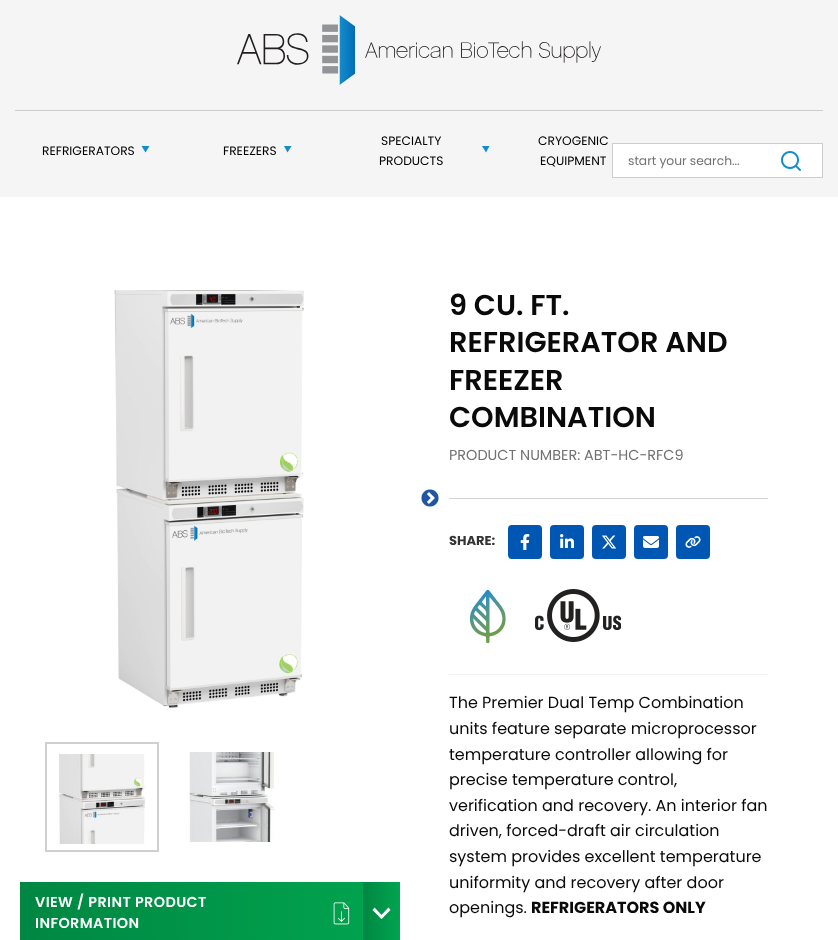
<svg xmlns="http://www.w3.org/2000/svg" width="838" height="940">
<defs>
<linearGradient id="g1" gradientUnits="userSpaceOnUse" x1="20" y1="913" x2="400" y2="913"><stop offset="0" stop-color="#008742"/><stop offset="1" stop-color="#00a550"/></linearGradient>
<linearGradient id="g2" gradientUnits="userSpaceOnUse" x1="363" y1="913" x2="400" y2="913"><stop offset="0" stop-color="#008742"/><stop offset="1" stop-color="#00a550"/></linearGradient>
</defs>
<rect width="100%" height="100%" fill="#fff"/>
<rect width="838" height="197" fill="#f5f5f5"/>
<image x="237" y="15" width="364" height="70" href="media/1.png"/>
<rect x="15" y="110" width="808" height="1" fill="#cdcdcd"/>
<text x="42" y="155" style="font-family:Poppins;font-size:12.25px;fill:#000">REFRIGERATORS</text>
<path d="M141.5 146h8l-4 6.5z" fill="#128ece"/>
<text x="223" y="155" style="font-family:Poppins;font-size:12.25px;fill:#000">FREEZERS</text>
<path d="M284 146h7.5l-4 6.5z" fill="#128ece"/>
<text x="381" y="145" style="font-family:Poppins;font-size:12.25px;fill:#000">SPECIALTY</text>
<text x="379" y="165" style="font-family:Poppins;font-size:12.25px;fill:#000">PRODUCTS</text>
<path d="M482 146h7.5l-3.5 6.5z" fill="#128ece"/>
<text x="538" y="145" style="font-family:Poppins;font-size:12.25px;fill:#000">CRYOGENIC</text>
<text x="540" y="165" style="font-family:Poppins;font-size:12.25px;fill:#000">EQUIPMENT</text>
<rect x="612.5" y="143.5" width="210" height="34" fill="#fff" stroke="#cdcdcd"/>
<text x="628" y="165" style="font-family:Poppins;font-size:12.25px;fill:#737172">start your search...</text>
<image x="781" y="151" width="20" height="20" href="media/2.png"/>
<image x="114" y="290" width="190" height="418" href="media/3.png"/>
<image x="421" y="489" width="18" height="18" href="media/4.png"/>
<rect x="46" y="743" width="112" height="108" fill="none" stroke="#d0d0d0" stroke-width="2"/>
<image x="58" y="754" width="88" height="90" href="media/5.png"/>
<image x="189" y="752" width="86" height="90" href="media/6.png"/>
<rect x="20" y="882" width="343" height="58" fill="url(#g1)"/>
<text x="35" y="907" style="font-family:Poppins;font-size:14.4px;font-weight:600;letter-spacing:0.4px;fill:#fff">VIEW / PRINT PRODUCT</text>
<text x="35" y="928" style="font-family:Poppins;font-size:14.4px;font-weight:600;letter-spacing:0.4px;fill:#fff">INFORMATION</text>
<image x="333" y="902" width="17" height="23" href="media/7.png"/>
<rect x="363" y="882" width="37" height="58" fill="url(#g2)"/>
<path d="M388.5 907.5l2 2.5l-9 9l-2-2z" fill="#fff"/>
<path d="M374.5 907.5l9 9.5l-2 2l-9-9z" fill="#fff"/>
<text x="449" y="315" style="font-family:Poppins;font-size:28.75px;font-weight:600;fill:#0a0a0a">9 CU. FT.</text>
<text x="449" y="352" style="font-family:Poppins;font-size:28.75px;font-weight:600;fill:#0a0a0a">REFRIGERATOR AND</text>
<text x="449" y="390" style="font-family:Poppins;font-size:28.75px;font-weight:600;fill:#0a0a0a">FREEZER</text>
<text x="449" y="427" style="font-family:Poppins;font-size:28.75px;font-weight:600;fill:#0a0a0a">COMBINATION</text>
<rect x="449" y="498" width="319" height="1" fill="#d3d3d3"/>
<text x="449" y="460" style="font-family:Poppins;font-size:14.4px;fill:#737172">PRODUCT NUMBER: ABT-HC-RFC9</text>
<text x="449" y="545" style="font-family:Poppins;font-size:13px;font-weight:bold;fill:#333">SHARE:</text>
<rect x="508" y="525" width="34" height="34" rx="4" fill="#0056b3"/>
<image x="520" y="534" width="10" height="16" href="media/8.png"/>
<rect x="550" y="525" width="34" height="34" rx="4" fill="#0056b3"/>
<image x="560" y="534" width="14" height="14" href="media/9.png"/>
<rect x="592" y="525" width="34" height="34" rx="4" fill="#0056b3"/>
<image x="602" y="535" width="15" height="14" href="media/10.png"/>
<rect x="634" y="525" width="34" height="34" rx="4" fill="#0056b3"/>
<image x="643" y="536" width="16" height="12" href="media/11.png"/>
<rect x="676" y="525" width="34" height="34" rx="4" fill="#0056b3"/>
<image x="685" y="536" width="16" height="12" href="media/12.png"/>
<image x="469" y="589" width="37" height="55" href="media/13.png"/>
<image x="535" y="589" width="87" height="53" href="media/14.png"/>
<rect x="449" y="674" width="319" height="1" fill="#f2f2f2"/>
<text x="449" y="708" style="font-family:Poppins;font-size:16px;fill:#0a0a0a">The Premier Dual Temp Combination</text>
<text x="449" y="734" style="font-family:Poppins;font-size:16px;fill:#0a0a0a">units feature separate microprocessor</text>
<text x="449" y="760" style="font-family:Poppins;font-size:16px;fill:#0a0a0a">temperature controller allowing for</text>
<text x="449" y="785" style="font-family:Poppins;font-size:16px;fill:#0a0a0a">precise temperature control,</text>
<text x="449" y="811" style="font-family:Poppins;font-size:16px;fill:#0a0a0a">verification and recovery. An interior fan</text>
<text x="449" y="836" style="font-family:Poppins;font-size:16px;fill:#0a0a0a">driven, forced-draft air circulation</text>
<text x="449" y="862" style="font-family:Poppins;font-size:16px;fill:#0a0a0a">system provides excellent temperature</text>
<text x="449" y="888" style="font-family:Poppins;font-size:16px;fill:#0a0a0a">uniformity and recovery after door</text>
<text x="449" y="913" style="font-family:Poppins;font-size:16px;fill:#0a0a0a">openings.</text>
<text x="531" y="913" style="font-family:Poppins;font-size:16px;font-weight:bold;fill:#0a0a0a">REFRIGERATORS ONLY</text>
</svg>
